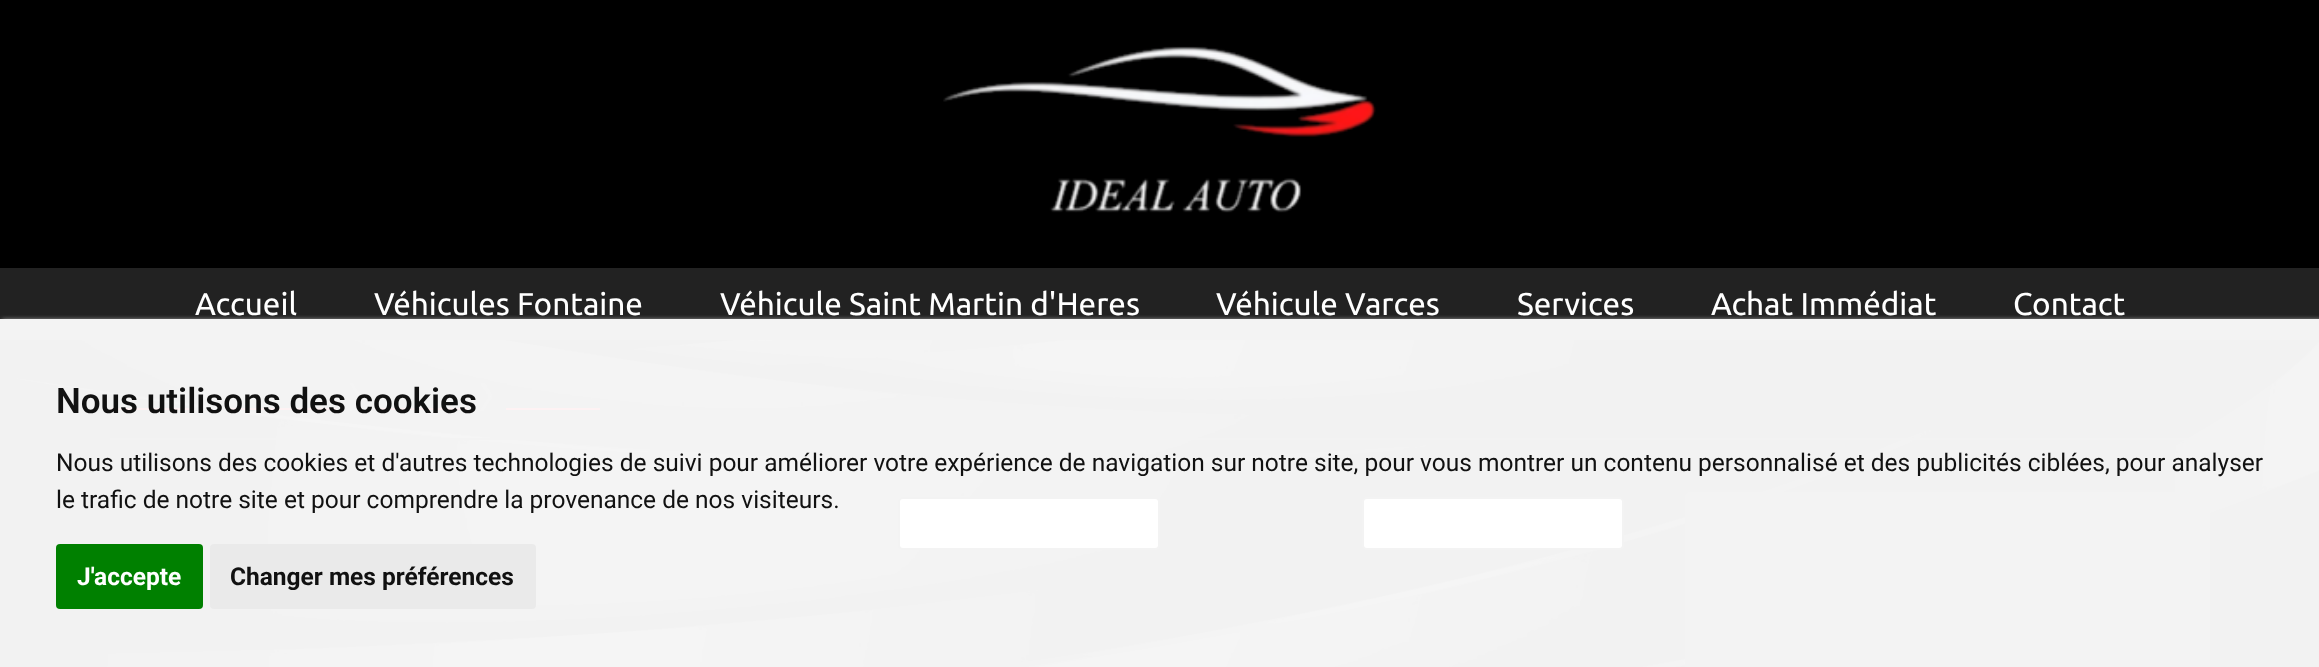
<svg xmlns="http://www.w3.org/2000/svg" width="2319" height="667">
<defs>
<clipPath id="clip1"><rect x="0" y="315" width="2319" height="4"/></clipPath>
</defs>
<rect width="100%" height="100%" fill="#fff"/>
<image x="0" y="340" width="2319" height="327" href="media/1.png"/>
<rect width="2319" height="268" fill="#000"/>
<image x="943" y="46" width="433" height="167" href="media/2.png"/>
<rect y="268" width="2319" height="72" fill="#222"/>
<text x="195" y="315" style="font-family:Ubuntu;font-size:31.5px;fill:#fff">Accueil</text>
<text x="374" y="315" style="font-family:Ubuntu;font-size:31.5px;fill:#fff">Véhicules Fontaine</text>
<text x="720" y="315" style="font-family:Ubuntu;font-size:31.5px;fill:#fff">Véhicule Saint Martin d'Heres</text>
<text x="1216" y="315" style="font-family:Ubuntu;font-size:31.5px;fill:#fff">Véhicule Varces</text>
<text x="1517" y="315" style="font-family:Ubuntu;font-size:31.5px;fill:#fff">Services</text>
<text x="1711" y="315" style="font-family:Ubuntu;font-size:31.5px;fill:#fff">Achat Immédiat</text>
<text x="2013" y="315" style="font-family:Ubuntu;font-size:31.5px;fill:#fff">Contact</text>
<rect x="110" y="408" width="79" height="2" fill="#e30613"/>
<image x="201" y="383" width="13" height="29" href="media/3.png"/>
<rect x="228" y="408" width="108" height="2" fill="#e30613"/>
<image x="348" y="383" width="13" height="29" href="media/4.png"/>
<rect x="375" y="408" width="92" height="2" fill="#e30613"/>
<image x="480" y="383" width="12" height="29" href="media/5.png"/>
<rect x="506" y="408" width="94" height="2" fill="#e30613"/>
<rect x="110" y="438" width="2100" height="2" fill="#222"/>
<rect x="899" y="498" width="260" height="51" rx="4" fill="#fff" stroke="#222" stroke-width="2"/>
<rect x="1363" y="498" width="260" height="51" rx="4" fill="#fff" stroke="#222" stroke-width="2"/>
<rect x="1686" y="493" width="523" height="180" rx="4" fill="#222" stroke="#222" stroke-width="2"/>
<g clip-path="url(#clip1)">
<rect x="2" y="320" width="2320" height="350" fill="#ccc" filter="blur(2.5px)"/>
</g>
<rect y="319" width="2319" height="348" fill="#fffffff2"/>
<text x="56" y="413" style="font-family:Roboto;font-size:35px;font-weight:600;fill:#111">Nous utilisons des cookies</text>
<text x="56" y="471" style="font-family:Roboto;font-size:24.5px;fill:#111">Nous utilisons des cookies et d'autres technologies de suivi pour améliorer votre expérience de navigation sur notre site, pour vous montrer un contenu personnalisé et des publicités ciblées, pour analyser</text>
<text x="56" y="508" style="font-family:Roboto;font-size:24.5px;fill:#111">le trafic de notre site et pour comprendre la provenance de nos visiteurs.</text>
<rect x="56" y="544" width="147" height="65" rx="4" fill="#008000"/>
<text x="77" y="585" style="font-family:Roboto;font-size:24.5px;font-weight:bold;fill:#fff">J'accepte</text>
<rect x="210" y="544" width="326" height="65" rx="4" fill="#eaeaea"/>
<text x="230" y="585" style="font-family:Roboto;font-size:24.5px;font-weight:bold;fill:#111">Changer mes préférences</text>
</svg>
